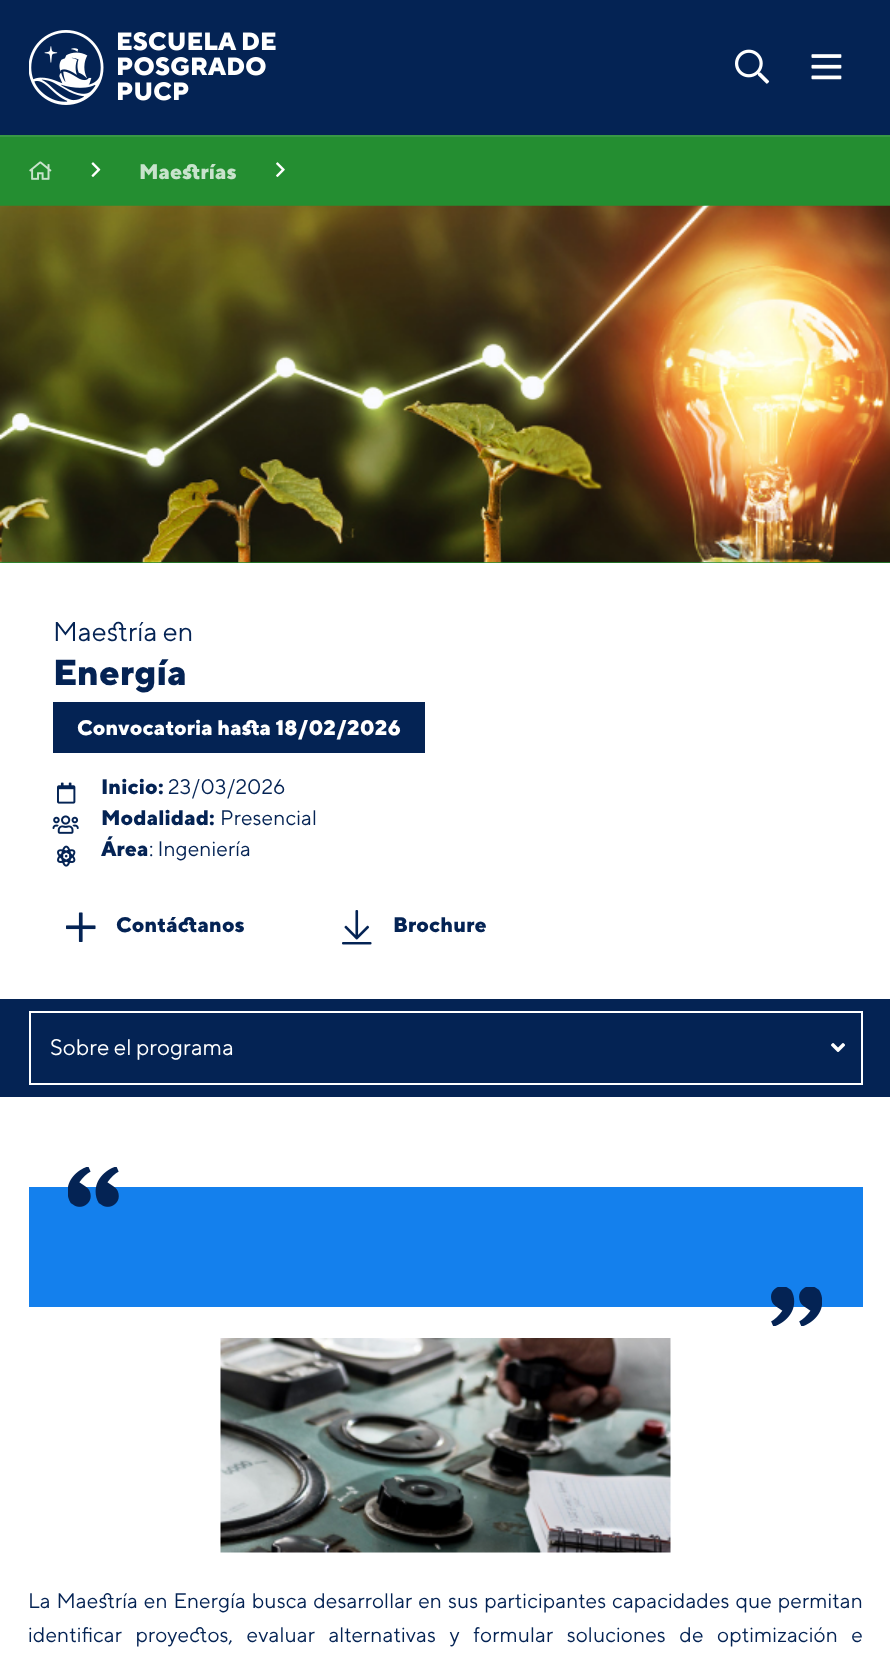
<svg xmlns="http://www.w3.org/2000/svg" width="890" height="1662">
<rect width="100%" height="100%" fill="#fff"/>
<rect width="890" height="135" fill="#042354"/>
<image x="29" y="30" width="247" height="75" href="media/1.png"/>
<image x="735" y="49" width="35" height="35" href="media/2.png"/>
<image x="811" y="54" width="31" height="26" href="media/3.png"/>
<rect y="137" width="890" height="426" fill="#248e31"/>
<rect y="135" width="890" height="2" fill="#389845"/>
<image x="29" y="161" width="23" height="19" href="media/4.png"/>
<image x="91" y="162" width="10" height="15" href="media/5.png"/>
<text x="139" y="179" style="font-family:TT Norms;font-size:21px;font-weight:800;fill:#c8e3cc">Maestrías</text>
<image x="276" y="162" width="9" height="15" href="media/6.png"/>
<image x="0" y="205" width="890" height="358" href="media/7.png"/>
<text x="53" y="641" style="font-family:TT Norms;font-size:27px;fill:#042354">Maestría en</text>
<text x="53" y="685" style="font-family:TT Norms;font-size:36px;font-weight:800;fill:#042354">Energía</text>
<rect x="53" y="702" width="372" height="51" fill="#042354"/>
<text x="77" y="735" style="font-family:TT Norms;font-size:21px;font-weight:800;fill:#fff">Convocatoria hasta 18/02/2026</text>
<image x="57" y="782" width="19" height="22" href="media/8.png"/>
<text x="101" y="794" style="font-family:TT Norms;font-size:21px;font-weight:800;fill:#042354">Inicio:</text>
<text x="168" y="794" style="font-family:TT Norms;font-size:21px;fill:#042354">23/03/2026</text>
<image x="52" y="815" width="27" height="19" href="media/9.png"/>
<text x="101" y="825" style="font-family:TT Norms;font-size:21px;font-weight:800;fill:#042354">Modalidad:</text>
<text x="220" y="825" style="font-family:TT Norms;font-size:21px;fill:#042354">Presencial</text>
<image x="57" y="845" width="19" height="22" href="media/10.png"/>
<text x="101" y="856" style="font-family:TT Norms;font-size:21px;font-weight:800;fill:#042354">Área</text>
<text x="149" y="856" style="font-family:TT Norms;font-size:21px;fill:#042354">: Ingeniería</text>
<image x="66" y="912" width="30" height="30" href="media/11.png"/>
<text x="116" y="932" style="font-family:TT Norms;font-size:21px;font-weight:800;fill:#042354">Contáctanos</text>
<image x="342" y="910" width="30" height="35" href="media/12.png"/>
<text x="393" y="932" style="font-family:TT Norms;font-size:21px;font-weight:800;fill:#042354">Brochure</text>
<rect y="999" width="890" height="98" fill="#042354"/>
<rect x="30" y="1012" width="832" height="72" fill="none" stroke="#fff" stroke-width="2"/>
<text x="50" y="1055" style="font-family:TT Norms;font-size:22.5px;fill:#fff">Sobre el programa</text>
<image x="831" y="1043" width="14" height="9" href="media/13.png"/>
<rect x="29" y="1187" width="834" height="120" fill="#1480ed"/>
<image x="68" y="1167" width="51" height="40" href="media/14.png"/>
<image x="771" y="1287" width="51" height="39" href="media/15.png"/>
<image x="220" y="1338" width="451" height="215" href="media/16.png"/>
<text x="28" y="1608" word-spacing="1.9" style="font-family:TT Norms;font-size:21px;fill:#042354">La Maestría en Energía busca desarrollar en sus participantes capacidades que permitan</text>
<text x="28" y="1642" word-spacing="9.5" style="font-family:TT Norms;font-size:21px;fill:#042354">identificar proyectos, evaluar alternativas y formular soluciones de optimización e</text>
</svg>
